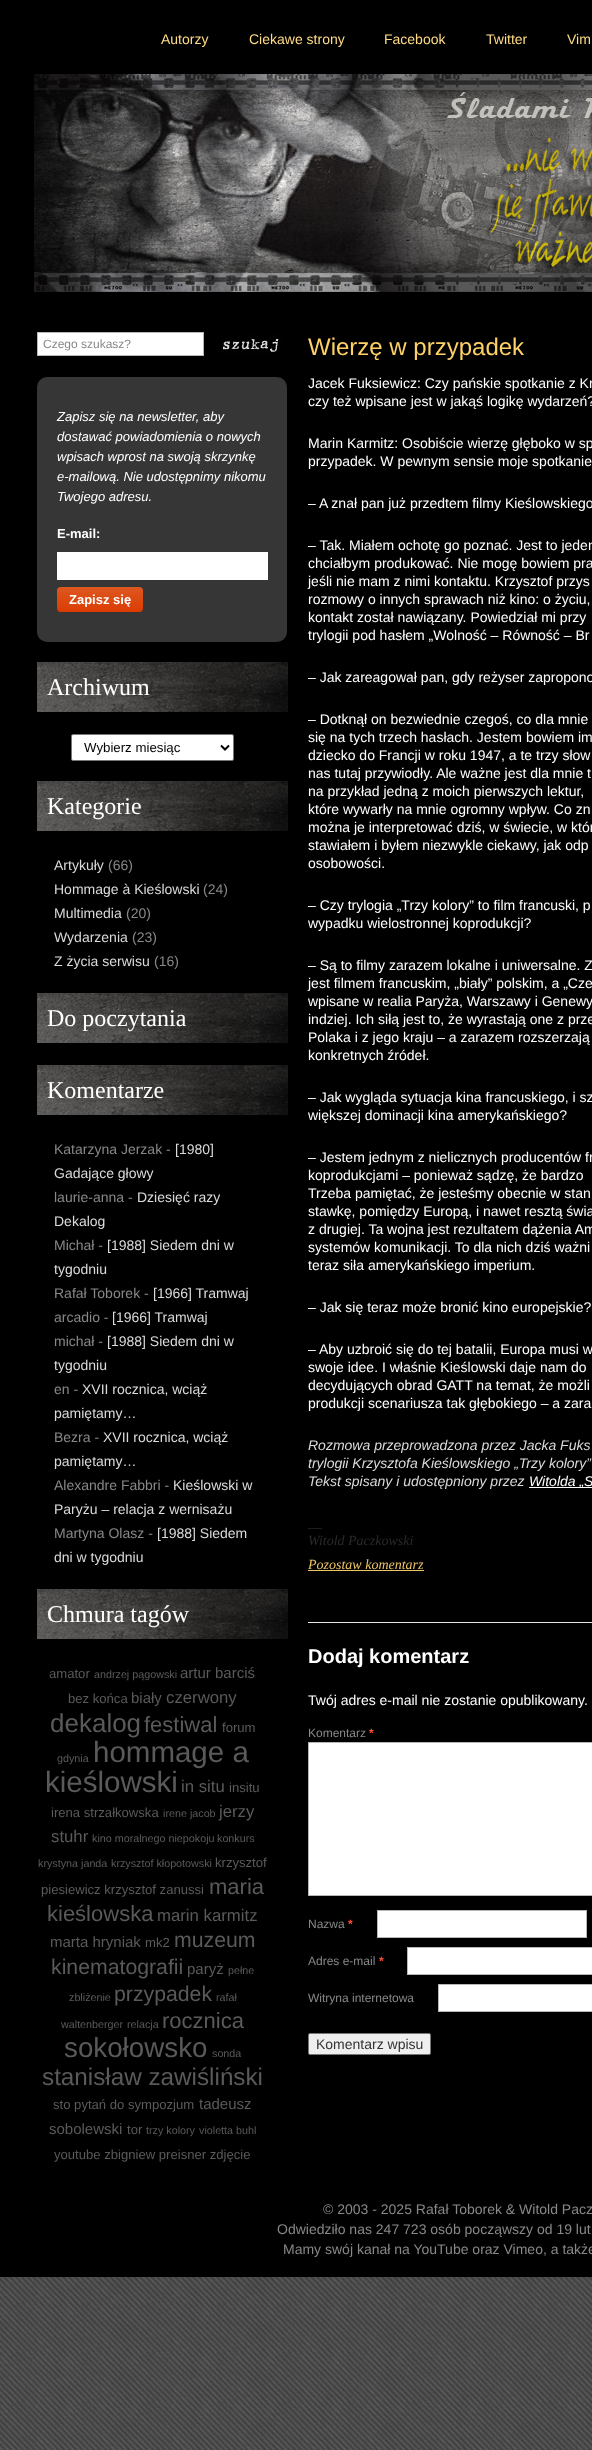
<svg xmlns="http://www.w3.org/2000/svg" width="592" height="2450">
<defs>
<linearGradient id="g1" gradientUnits="userSpaceOnUse" x1="100" y1="587" x2="100" y2="612"><stop offset="0" stop-color="#dd5820"/><stop offset="1" stop-color="#db3c03"/></linearGradient>
</defs>
<rect width="100%" height="100%" fill="#fff"/>
<image x="0" y="2277" width="592" height="173" href="media/1.png"/>
<rect width="592" height="2277" fill="#000"/>
<text x="161" y="44" style="font-family:Liberation Sans;font-size:14px;fill:#ffdb86">Autorzy</text>
<text x="249" y="44" style="font-family:Liberation Sans;font-size:14px;fill:#ffdb86">Ciekawe strony</text>
<text x="384" y="44" style="font-family:Liberation Sans;font-size:14px;fill:#ffdb86">Facebook</text>
<text x="486" y="44" style="font-family:Liberation Sans;font-size:14px;fill:#ffdb86">Twitter</text>
<text x="567" y="44" style="font-family:Liberation Sans;font-size:14px;fill:#ffdb86">Vim</text>
<image x="34" y="74" width="558" height="218" href="media/2.png"/>
<rect x="37.5" y="332.5" width="166" height="23" fill="#fff" stroke="#b7b7b8"/>
<text x="43" y="348" style="font-family:Liberation Sans;font-size:12px;fill:#888">Czego szukasz?</text>
<image x="222" y="333" width="63" height="23" href="media/3.png"/>
<rect x="37" y="377" width="250" height="265" rx="10" fill="#363636"/>
<text x="57" y="421" style="font-family:Liberation Sans;font-size:13px;font-style:italic;fill:#fff">Zapisz się na newsletter, aby</text>
<text x="57" y="441" style="font-family:Liberation Sans;font-size:13px;font-style:italic;fill:#fff">dostawać powiadomienia o nowych</text>
<text x="57" y="461" style="font-family:Liberation Sans;font-size:13px;font-style:italic;fill:#fff">wpisach wprost na swoją skrzynkę</text>
<text x="57" y="481" style="font-family:Liberation Sans;font-size:13px;font-style:italic;fill:#fff">e-mailową. Nie udostępnimy nikomu</text>
<text x="57" y="501" style="font-family:Liberation Sans;font-size:13px;font-style:italic;fill:#fff">Twojego adresu.</text>
<text x="57" y="538" style="font-family:Liberation Sans;font-size:13px;font-weight:bold;fill:#fff">E-mail:</text>
<rect x="57" y="552" width="211" height="28" fill="#fff"/>
<rect x="57" y="587" width="86" height="25" rx="4" fill="url(#g1)"/>
<text x="69" y="604" style="font-family:Liberation Sans;font-size:13px;font-weight:bold;fill:#fff">Zapisz się</text>
<image x="37" y="662" width="251" height="50" href="media/4.png"/>
<text x="47" y="695" style="font-family:Liberation Serif;font-size:24px;fill:#fff">Archiwum</text>
<rect x="71.5" y="734.5" width="162" height="26" rx="1.5" fill="#fff" stroke="#767676"/>
<path d="M221 745.5l4 4l4-4" fill="none" stroke="#000" stroke-width="2"/>
<text x="84" y="752" style="font-family:Liberation Sans;font-size:13.25px;fill:#000">Wybierz miesiąc</text>
<image x="37" y="781" width="251" height="50" href="media/4.png"/>
<text x="47" y="814" style="font-family:Liberation Serif;font-size:24px;fill:#fff">Kategorie</text>
<text x="54" y="870" style="font-family:Liberation Sans;font-size:14px;fill:#dbdbdb">Artykuły</text>
<text x="108" y="870" style="font-family:Liberation Sans;font-size:14px;fill:#888">(66)</text>
<text x="54" y="894" style="font-family:Liberation Sans;font-size:14px;fill:#dbdbdb">Hommage à Kieślowski</text>
<text x="203" y="894" style="font-family:Liberation Sans;font-size:14px;fill:#888">(24)</text>
<text x="54" y="918" style="font-family:Liberation Sans;font-size:14px;fill:#dbdbdb">Multimedia</text>
<text x="126" y="918" style="font-family:Liberation Sans;font-size:14px;fill:#888">(20)</text>
<text x="54" y="942" style="font-family:Liberation Sans;font-size:14px;fill:#dbdbdb">Wydarzenia</text>
<text x="132" y="942" style="font-family:Liberation Sans;font-size:14px;fill:#888">(23)</text>
<text x="54" y="966" style="font-family:Liberation Sans;font-size:14px;fill:#dbdbdb">Z życia serwisu</text>
<text x="154" y="966" style="font-family:Liberation Sans;font-size:14px;fill:#888">(16)</text>
<image x="37" y="993" width="251" height="50" href="media/4.png"/>
<text x="47" y="1026" style="font-family:Liberation Serif;font-size:24px;fill:#fff">Do poczytania</text>
<image x="37" y="1065" width="251" height="50" href="media/4.png"/>
<text x="47" y="1098" style="font-family:Liberation Serif;font-size:24px;fill:#fff">Komentarze</text>
<text x="54" y="1154" style="font-family:Liberation Sans;font-size:14px;fill:#888">Katarzyna Jerzak -</text>
<text x="175" y="1154" style="font-family:Liberation Sans;font-size:14px;fill:#dbdbdb">[1980]</text>
<text x="54" y="1178" style="font-family:Liberation Sans;font-size:14px;fill:#dbdbdb">Gadające głowy</text>
<text x="54" y="1202" style="font-family:Liberation Sans;font-size:14px;fill:#888">laurie-anna -</text>
<text x="137" y="1202" style="font-family:Liberation Sans;font-size:14px;fill:#dbdbdb">Dziesięć razy</text>
<text x="54" y="1226" style="font-family:Liberation Sans;font-size:14px;fill:#dbdbdb">Dekalog</text>
<text x="54" y="1250" style="font-family:Liberation Sans;font-size:14px;fill:#888">Michał -</text>
<text x="107" y="1250" style="font-family:Liberation Sans;font-size:14px;fill:#dbdbdb">[1988] Siedem dni w</text>
<text x="54" y="1274" style="font-family:Liberation Sans;font-size:14px;fill:#dbdbdb">tygodniu</text>
<text x="54" y="1298" style="font-family:Liberation Sans;font-size:14px;fill:#888">Rafał Toborek -</text>
<text x="153" y="1298" style="font-family:Liberation Sans;font-size:14px;fill:#dbdbdb">[1966] Tramwaj</text>
<text x="54" y="1322" style="font-family:Liberation Sans;font-size:14px;fill:#888">arcadio -</text>
<text x="112" y="1322" style="font-family:Liberation Sans;font-size:14px;fill:#dbdbdb">[1966] Tramwaj</text>
<text x="54" y="1346" style="font-family:Liberation Sans;font-size:14px;fill:#888">michał -</text>
<text x="107" y="1346" style="font-family:Liberation Sans;font-size:14px;fill:#dbdbdb">[1988] Siedem dni w</text>
<text x="54" y="1370" style="font-family:Liberation Sans;font-size:14px;fill:#dbdbdb">tygodniu</text>
<text x="54" y="1394" style="font-family:Liberation Sans;font-size:14px;fill:#888">en -</text>
<text x="82" y="1394" style="font-family:Liberation Sans;font-size:14px;fill:#dbdbdb">XVII rocznica, wciąż</text>
<text x="54" y="1418" style="font-family:Liberation Sans;font-size:14px;fill:#dbdbdb">pamiętamy…</text>
<text x="54" y="1442" style="font-family:Liberation Sans;font-size:14px;fill:#888">Bezra -</text>
<text x="103" y="1442" style="font-family:Liberation Sans;font-size:14px;fill:#dbdbdb">XVII rocznica, wciąż</text>
<text x="54" y="1466" style="font-family:Liberation Sans;font-size:14px;fill:#dbdbdb">pamiętamy…</text>
<text x="54" y="1490" style="font-family:Liberation Sans;font-size:14px;fill:#888">Alexandre Fabbri -</text>
<text x="173" y="1490" style="font-family:Liberation Sans;font-size:14px;fill:#dbdbdb">Kieślowski w</text>
<text x="54" y="1514" style="font-family:Liberation Sans;font-size:14px;fill:#dbdbdb">Paryżu – relacja z wernisażu</text>
<text x="54" y="1538" style="font-family:Liberation Sans;font-size:14px;fill:#888">Martyna Olasz -</text>
<text x="157" y="1538" style="font-family:Liberation Sans;font-size:14px;fill:#dbdbdb">[1988] Siedem</text>
<text x="54" y="1562" style="font-family:Liberation Sans;font-size:14px;fill:#dbdbdb">dni w tygodniu</text>
<image x="37" y="1589" width="251" height="50" href="media/4.png"/>
<text x="47" y="1622" style="font-family:Liberation Serif;font-size:24px;fill:#fff">Chmura tagów</text>
<text x="49" y="1678" style="font-family:Liberation Sans;font-size:13.1px;fill:#5a5a5a">amator</text>
<text x="94" y="1678" style="font-family:Liberation Sans;font-size:10.75px;fill:#5a5a5a">andrzej pągowski</text>
<text x="180" y="1678" style="font-family:Liberation Sans;font-size:15px;fill:#5a5a5a">artur barciś</text>
<text x="68" y="1703" style="font-family:Liberation Sans;font-size:13.1px;fill:#5a5a5a">bez końca</text>
<text x="131" y="1703" style="font-family:Liberation Sans;font-size:15px;fill:#5a5a5a">biały</text>
<text x="166" y="1703" style="font-family:Liberation Sans;font-size:16.75px;fill:#5a5a5a">czerwony</text>
<text x="50" y="1732" style="font-family:Liberation Sans;font-size:26px;fill:#5a5a5a">dekalog</text>
<text x="144" y="1732" style="font-family:Liberation Sans;font-size:22px;fill:#5a5a5a">festiwal</text>
<text x="222" y="1732" style="font-family:Liberation Sans;font-size:13.1px;fill:#5a5a5a">forum</text>
<text x="57" y="1762" style="font-family:Liberation Sans;font-size:10.75px;fill:#5a5a5a">gdynia</text>
<text x="93" y="1762" style="font-family:Liberation Sans;font-size:29.5px;fill:#5a5a5a">hommage a</text>
<text x="45" y="1792" style="font-family:Liberation Sans;font-size:29.5px;fill:#5a5a5a">kieślowski</text>
<text x="181" y="1792" style="font-family:Liberation Sans;font-size:16.75px;fill:#5a5a5a">in situ</text>
<text x="229" y="1792" style="font-family:Liberation Sans;font-size:13.1px;fill:#5a5a5a">insitu</text>
<text x="51" y="1817" style="font-family:Liberation Sans;font-size:13.1px;fill:#5a5a5a">irena strzałkowska</text>
<text x="163" y="1817" style="font-family:Liberation Sans;font-size:10.75px;fill:#5a5a5a">irene jacob</text>
<text x="219" y="1817" style="font-family:Liberation Sans;font-size:16.75px;fill:#5a5a5a">jerzy</text>
<text x="51" y="1842" style="font-family:Liberation Sans;font-size:16.75px;fill:#5a5a5a">stuhr</text>
<text x="92" y="1842" style="font-family:Liberation Sans;font-size:10.75px;fill:#5a5a5a">kino moralnego niepokoju</text>
<text x="217" y="1842" style="font-family:Liberation Sans;font-size:10.75px;fill:#5a5a5a">konkurs</text>
<text x="38" y="1867" style="font-family:Liberation Sans;font-size:10.75px;fill:#5a5a5a">krystyna janda</text>
<text x="111" y="1867" style="font-family:Liberation Sans;font-size:10.75px;fill:#5a5a5a">krzysztof kłopotowski</text>
<text x="215" y="1867" style="font-family:Liberation Sans;font-size:13.1px;fill:#5a5a5a">krzysztof</text>
<text x="41" y="1894" style="font-family:Liberation Sans;font-size:13.1px;fill:#5a5a5a">piesiewicz krzysztof zanussi</text>
<text x="209" y="1894" style="font-family:Liberation Sans;font-size:22px;fill:#5a5a5a">maria</text>
<text x="47" y="1921" style="font-family:Liberation Sans;font-size:22px;fill:#5a5a5a">kieślowska</text>
<text x="157" y="1921" style="font-family:Liberation Sans;font-size:16.75px;fill:#5a5a5a">marin karmitz</text>
<text x="50" y="1947" style="font-family:Liberation Sans;font-size:15px;fill:#5a5a5a">marta hryniak</text>
<text x="145" y="1947" style="font-family:Liberation Sans;font-size:13.1px;fill:#5a5a5a">mk2</text>
<text x="174" y="1947" style="font-family:Liberation Sans;font-size:21.25px;fill:#5a5a5a">muzeum</text>
<text x="51" y="1974" style="font-family:Liberation Sans;font-size:21.25px;fill:#5a5a5a">kinematografii</text>
<text x="187" y="1974" style="font-family:Liberation Sans;font-size:15px;fill:#5a5a5a">paryż</text>
<text x="228" y="1974" style="font-family:Liberation Sans;font-size:10.75px;fill:#5a5a5a">pełne</text>
<text x="69" y="2001" style="font-family:Liberation Sans;font-size:10.75px;fill:#5a5a5a">zbliżenie</text>
<text x="114" y="2001" style="font-family:Liberation Sans;font-size:21.25px;fill:#5a5a5a">przypadek</text>
<text x="216" y="2001" style="font-family:Liberation Sans;font-size:10.75px;fill:#5a5a5a">rafał</text>
<text x="61" y="2028" style="font-family:Liberation Sans;font-size:10.75px;fill:#5a5a5a">waltenberger</text>
<text x="127" y="2028" style="font-family:Liberation Sans;font-size:10.75px;fill:#5a5a5a">relacja</text>
<text x="162" y="2028" style="font-family:Liberation Sans;font-size:22px;fill:#5a5a5a">rocznica</text>
<text x="64" y="2057" style="font-family:Liberation Sans;font-size:27.75px;fill:#5a5a5a">sokołowsko</text>
<text x="212" y="2057" style="font-family:Liberation Sans;font-size:10.75px;fill:#5a5a5a">sonda</text>
<text x="42" y="2085" style="font-family:Liberation Sans;font-size:24.25px;fill:#5a5a5a">stanisław zawiśliński</text>
<text x="53" y="2109" style="font-family:Liberation Sans;font-size:13.1px;fill:#5a5a5a">sto pytań do sympozjum</text>
<text x="199" y="2109" style="font-family:Liberation Sans;font-size:15px;fill:#5a5a5a">tadeusz</text>
<text x="49" y="2134" style="font-family:Liberation Sans;font-size:15px;fill:#5a5a5a">sobolewski</text>
<text x="127" y="2134" style="font-family:Liberation Sans;font-size:13.1px;fill:#5a5a5a">tor</text>
<text x="146" y="2134" style="font-family:Liberation Sans;font-size:10.75px;fill:#5a5a5a">trzy kolory</text>
<text x="199" y="2134" style="font-family:Liberation Sans;font-size:10.75px;fill:#5a5a5a">violetta buhl</text>
<text x="54" y="2159" style="font-family:Liberation Sans;font-size:13.1px;fill:#5a5a5a">youtube zbigniew preisner zdjęcie</text>
<text x="308" y="355" style="font-family:Liberation Sans;font-size:24px;fill:#fed167">Wierzę w przypadek</text>
<text x="308" y="388" style="font-family:Liberation Sans;font-size:14px;fill:#fff">Jacek Fuksiewicz: Czy pańskie spotkanie z Kr</text>
<text x="308" y="406" style="font-family:Liberation Sans;font-size:14px;fill:#fff">czy też wpisane jest w jakąś logikę wydarzeń?</text>
<text x="308" y="448" style="font-family:Liberation Sans;font-size:14px;fill:#fff">Marin Karmitz: Osobiście wierzę głęboko w sp</text>
<text x="308" y="466" style="font-family:Liberation Sans;font-size:14px;fill:#fff">przypadek. W pewnym sensie moje spotkanie</text>
<text x="308" y="508" style="font-family:Liberation Sans;font-size:14px;fill:#fff">– A znał pan już przedtem filmy Kieślowskiego</text>
<text x="308" y="550" style="font-family:Liberation Sans;font-size:14px;fill:#fff">– Tak. Miałem ochotę go poznać. Jest to jeden</text>
<text x="308" y="568" style="font-family:Liberation Sans;font-size:14px;fill:#fff">chciałbym produkować. Nie mogę bowiem pra</text>
<text x="308" y="586" style="font-family:Liberation Sans;font-size:14px;fill:#fff">jeśli nie mam z nimi kontaktu. Krzysztof przys</text>
<text x="308" y="604" style="font-family:Liberation Sans;font-size:14px;fill:#fff">rozmowy o innych sprawach niż kino: o życiu,</text>
<text x="308" y="622" style="font-family:Liberation Sans;font-size:14px;fill:#fff">kontakt został nawiązany. Powiedział mi przy</text>
<text x="308" y="640" style="font-family:Liberation Sans;font-size:14px;fill:#fff">trylogii pod hasłem „Wolność – Równość – Br</text>
<text x="308" y="682" style="font-family:Liberation Sans;font-size:14px;fill:#fff">– Jak zareagował pan, gdy reżyser zapropono</text>
<text x="308" y="724" style="font-family:Liberation Sans;font-size:14px;fill:#fff">– Dotknął on bezwiednie czegoś, co dla mnie</text>
<text x="308" y="742" style="font-family:Liberation Sans;font-size:14px;fill:#fff">się na tych trzech hasłach. Jestem bowiem im</text>
<text x="308" y="760" style="font-family:Liberation Sans;font-size:14px;fill:#fff">dziecko do Francji w roku 1947, a te trzy słow</text>
<text x="308" y="778" style="font-family:Liberation Sans;font-size:14px;fill:#fff">nas tutaj przywiodły. Ale ważne jest dla mnie t</text>
<text x="308" y="796" style="font-family:Liberation Sans;font-size:14px;fill:#fff">na przykład jedną z moich pierwszych lektur,</text>
<text x="308" y="814" style="font-family:Liberation Sans;font-size:14px;fill:#fff">które wywarły na mnie ogromny wpływ. Co zn</text>
<text x="308" y="832" style="font-family:Liberation Sans;font-size:14px;fill:#fff">można je interpretować dziś, w świecie, w któr</text>
<text x="308" y="850" style="font-family:Liberation Sans;font-size:14px;fill:#fff">stawiałem i byłem niezwykle ciekawy, jak odp</text>
<text x="308" y="868" style="font-family:Liberation Sans;font-size:14px;fill:#fff">osobowości.</text>
<text x="308" y="910" style="font-family:Liberation Sans;font-size:14px;fill:#fff">– Czy trylogia „Trzy kolory” to film francuski, p</text>
<text x="308" y="928" style="font-family:Liberation Sans;font-size:14px;fill:#fff">wypadku wielostronnej koprodukcji?</text>
<text x="308" y="970" style="font-family:Liberation Sans;font-size:14px;fill:#fff">– Są to filmy zarazem lokalne i uniwersalne. Z</text>
<text x="308" y="988" style="font-family:Liberation Sans;font-size:14px;fill:#fff">jest filmem francuskim, „biały” polskim, a „Cze</text>
<text x="308" y="1006" style="font-family:Liberation Sans;font-size:14px;fill:#fff">wpisane w realia Paryża, Warszawy i Genewy</text>
<text x="308" y="1024" style="font-family:Liberation Sans;font-size:14px;fill:#fff">indziej. Ich siłą jest to, że wyrastają one z prze</text>
<text x="308" y="1042" style="font-family:Liberation Sans;font-size:14px;fill:#fff">Polaka i z jego kraju – a zarazem rozszerzają</text>
<text x="308" y="1060" style="font-family:Liberation Sans;font-size:14px;fill:#fff">konkretnych źródeł.</text>
<text x="308" y="1102" style="font-family:Liberation Sans;font-size:14px;fill:#fff">– Jak wygląda sytuacja kina francuskiego, i sz</text>
<text x="308" y="1120" style="font-family:Liberation Sans;font-size:14px;fill:#fff">większej dominacji kina amerykańskiego?</text>
<text x="308" y="1162" style="font-family:Liberation Sans;font-size:14px;fill:#fff">– Jestem jednym z nielicznych producentów fr</text>
<text x="308" y="1180" style="font-family:Liberation Sans;font-size:14px;fill:#fff">koprodukcjami – ponieważ sądzę, że bardzo</text>
<text x="308" y="1198" style="font-family:Liberation Sans;font-size:14px;fill:#fff">Trzeba pamiętać, że jesteśmy obecnie w stan</text>
<text x="308" y="1216" style="font-family:Liberation Sans;font-size:14px;fill:#fff">stawkę, pomiędzy Europą, i nawet resztą świa</text>
<text x="308" y="1234" style="font-family:Liberation Sans;font-size:14px;fill:#fff">z drugiej. Ta wojna jest rezultatem dążenia Am</text>
<text x="308" y="1252" style="font-family:Liberation Sans;font-size:14px;fill:#fff">systemów komunikacji. To dla nich dziś ważni</text>
<text x="308" y="1270" style="font-family:Liberation Sans;font-size:14px;fill:#fff">teraz siła amerykańskiego imperium.</text>
<text x="308" y="1312" style="font-family:Liberation Sans;font-size:14px;fill:#fff">– Jak się teraz może bronić kino europejskie?</text>
<text x="308" y="1354" style="font-family:Liberation Sans;font-size:14px;fill:#fff">– Aby uzbroić się do tej batalii, Europa musi w</text>
<text x="308" y="1372" style="font-family:Liberation Sans;font-size:14px;fill:#fff">swoje idee. I właśnie Kieślowski daje nam do</text>
<text x="308" y="1390" style="font-family:Liberation Sans;font-size:14px;fill:#fff">decydujących obrad GATT na temat, że możli</text>
<text x="308" y="1408" style="font-family:Liberation Sans;font-size:14px;fill:#fff">produkcji scenariusza tak głębokiego – a zara</text>
<text x="308" y="1450" style="font-family:Liberation Sans;font-size:14px;font-style:italic;fill:#dbdbdb">Rozmowa przeprowadzona przez Jacka Fuks</text>
<text x="308" y="1468" style="font-family:Liberation Sans;font-size:14px;font-style:italic;fill:#dbdbdb">trylogii Krzysztofa Kieślowskiego „Trzy kolory”</text>
<text x="308" y="1486" style="font-family:Liberation Sans;font-size:14px;font-style:italic;fill:#dbdbdb">Tekst spisany i udostępniony przez</text>
<rect x="529" y="1487" width="63" height="1" fill="#fff"/>
<text x="529" y="1486" style="font-family:Liberation Sans;font-size:14px;font-style:italic;fill:#fff">Witolda „S</text>
<text x="308" y="1527" style="font-family:Liberation Serif;font-size:14px;font-style:italic;fill:#2a2a2a">__</text>
<text x="308" y="1545" style="font-family:Liberation Serif;font-size:14px;font-style:italic;fill:#2a2a2a">Witold Paczkowski</text>
<text x="308" y="1569" style="font-family:Liberation Serif;font-size:14px;font-style:italic;fill:#edc566">Pozostaw komentarz</text>
<rect x="308" y="1570" width="116" height="1" fill="#edc566"/>
<rect x="308" y="1622" width="284" height="1" fill="#e7e7e7"/>
<text x="308" y="1663" style="font-family:Liberation Sans;font-size:20px;font-weight:bold;fill:#fff">Dodaj komentarz</text>
<text x="308" y="1705" style="font-family:Liberation Sans;font-size:14px;fill:#fff">Twój adres e-mail nie zostanie opublikowany.</text>
<text x="308" y="1737" style="font-family:Liberation Sans;font-size:12px;fill:#888">Komentarz</text>
<text x="369" y="1737" style="font-family:Liberation Sans;font-size:12px;font-weight:bold;fill:#ff4b33">*</text>
<rect x="308.5" y="1742.5" width="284" height="153" fill="#fff" stroke="#b7b7b8"/>
<text x="308" y="1928" style="font-family:Liberation Sans;font-size:12px;fill:#888">Nazwa</text>
<text x="348" y="1928" style="font-family:Liberation Sans;font-size:12px;font-weight:bold;fill:#ff4b33">*</text>
<rect x="377.5" y="1910.5" width="209" height="27" fill="#fff" stroke="#b7b7b8"/>
<text x="308" y="1965" style="font-family:Liberation Sans;font-size:12px;fill:#888">Adres e-mail</text>
<text x="379" y="1965" style="font-family:Liberation Sans;font-size:12px;font-weight:bold;fill:#ff4b33">*</text>
<rect x="407.5" y="1947.5" width="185" height="27" fill="#fff" stroke="#b7b7b8"/>
<text x="308" y="2002" style="font-family:Liberation Sans;font-size:12px;fill:#888">Witryna internetowa</text>
<rect x="438.5" y="1984.5" width="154" height="27" fill="#fff" stroke="#b7b7b8"/>
<rect x="308.5" y="2033.5" width="122" height="21" rx="1.5" fill="#efefef" stroke="#767676"/>
<text x="316" y="2049" style="font-family:Liberation Sans;font-size:14px;fill:#333">Komentarz wpisu</text>
<text x="323" y="2214" style="font-family:Liberation Sans;font-size:14px;fill:#888">© 2003 - 2025 Rafał Toborek &amp; Witold Pacz</text>
<text x="277" y="2234" style="font-family:Liberation Sans;font-size:14px;fill:#888">Odwiedziło nas 247 723 osób począwszy od 19 lut</text>
<text x="283" y="2254" style="font-family:Liberation Sans;font-size:14px;fill:#888">Mamy swój kanał na YouTube oraz Vimeo, a także</text>
</svg>
